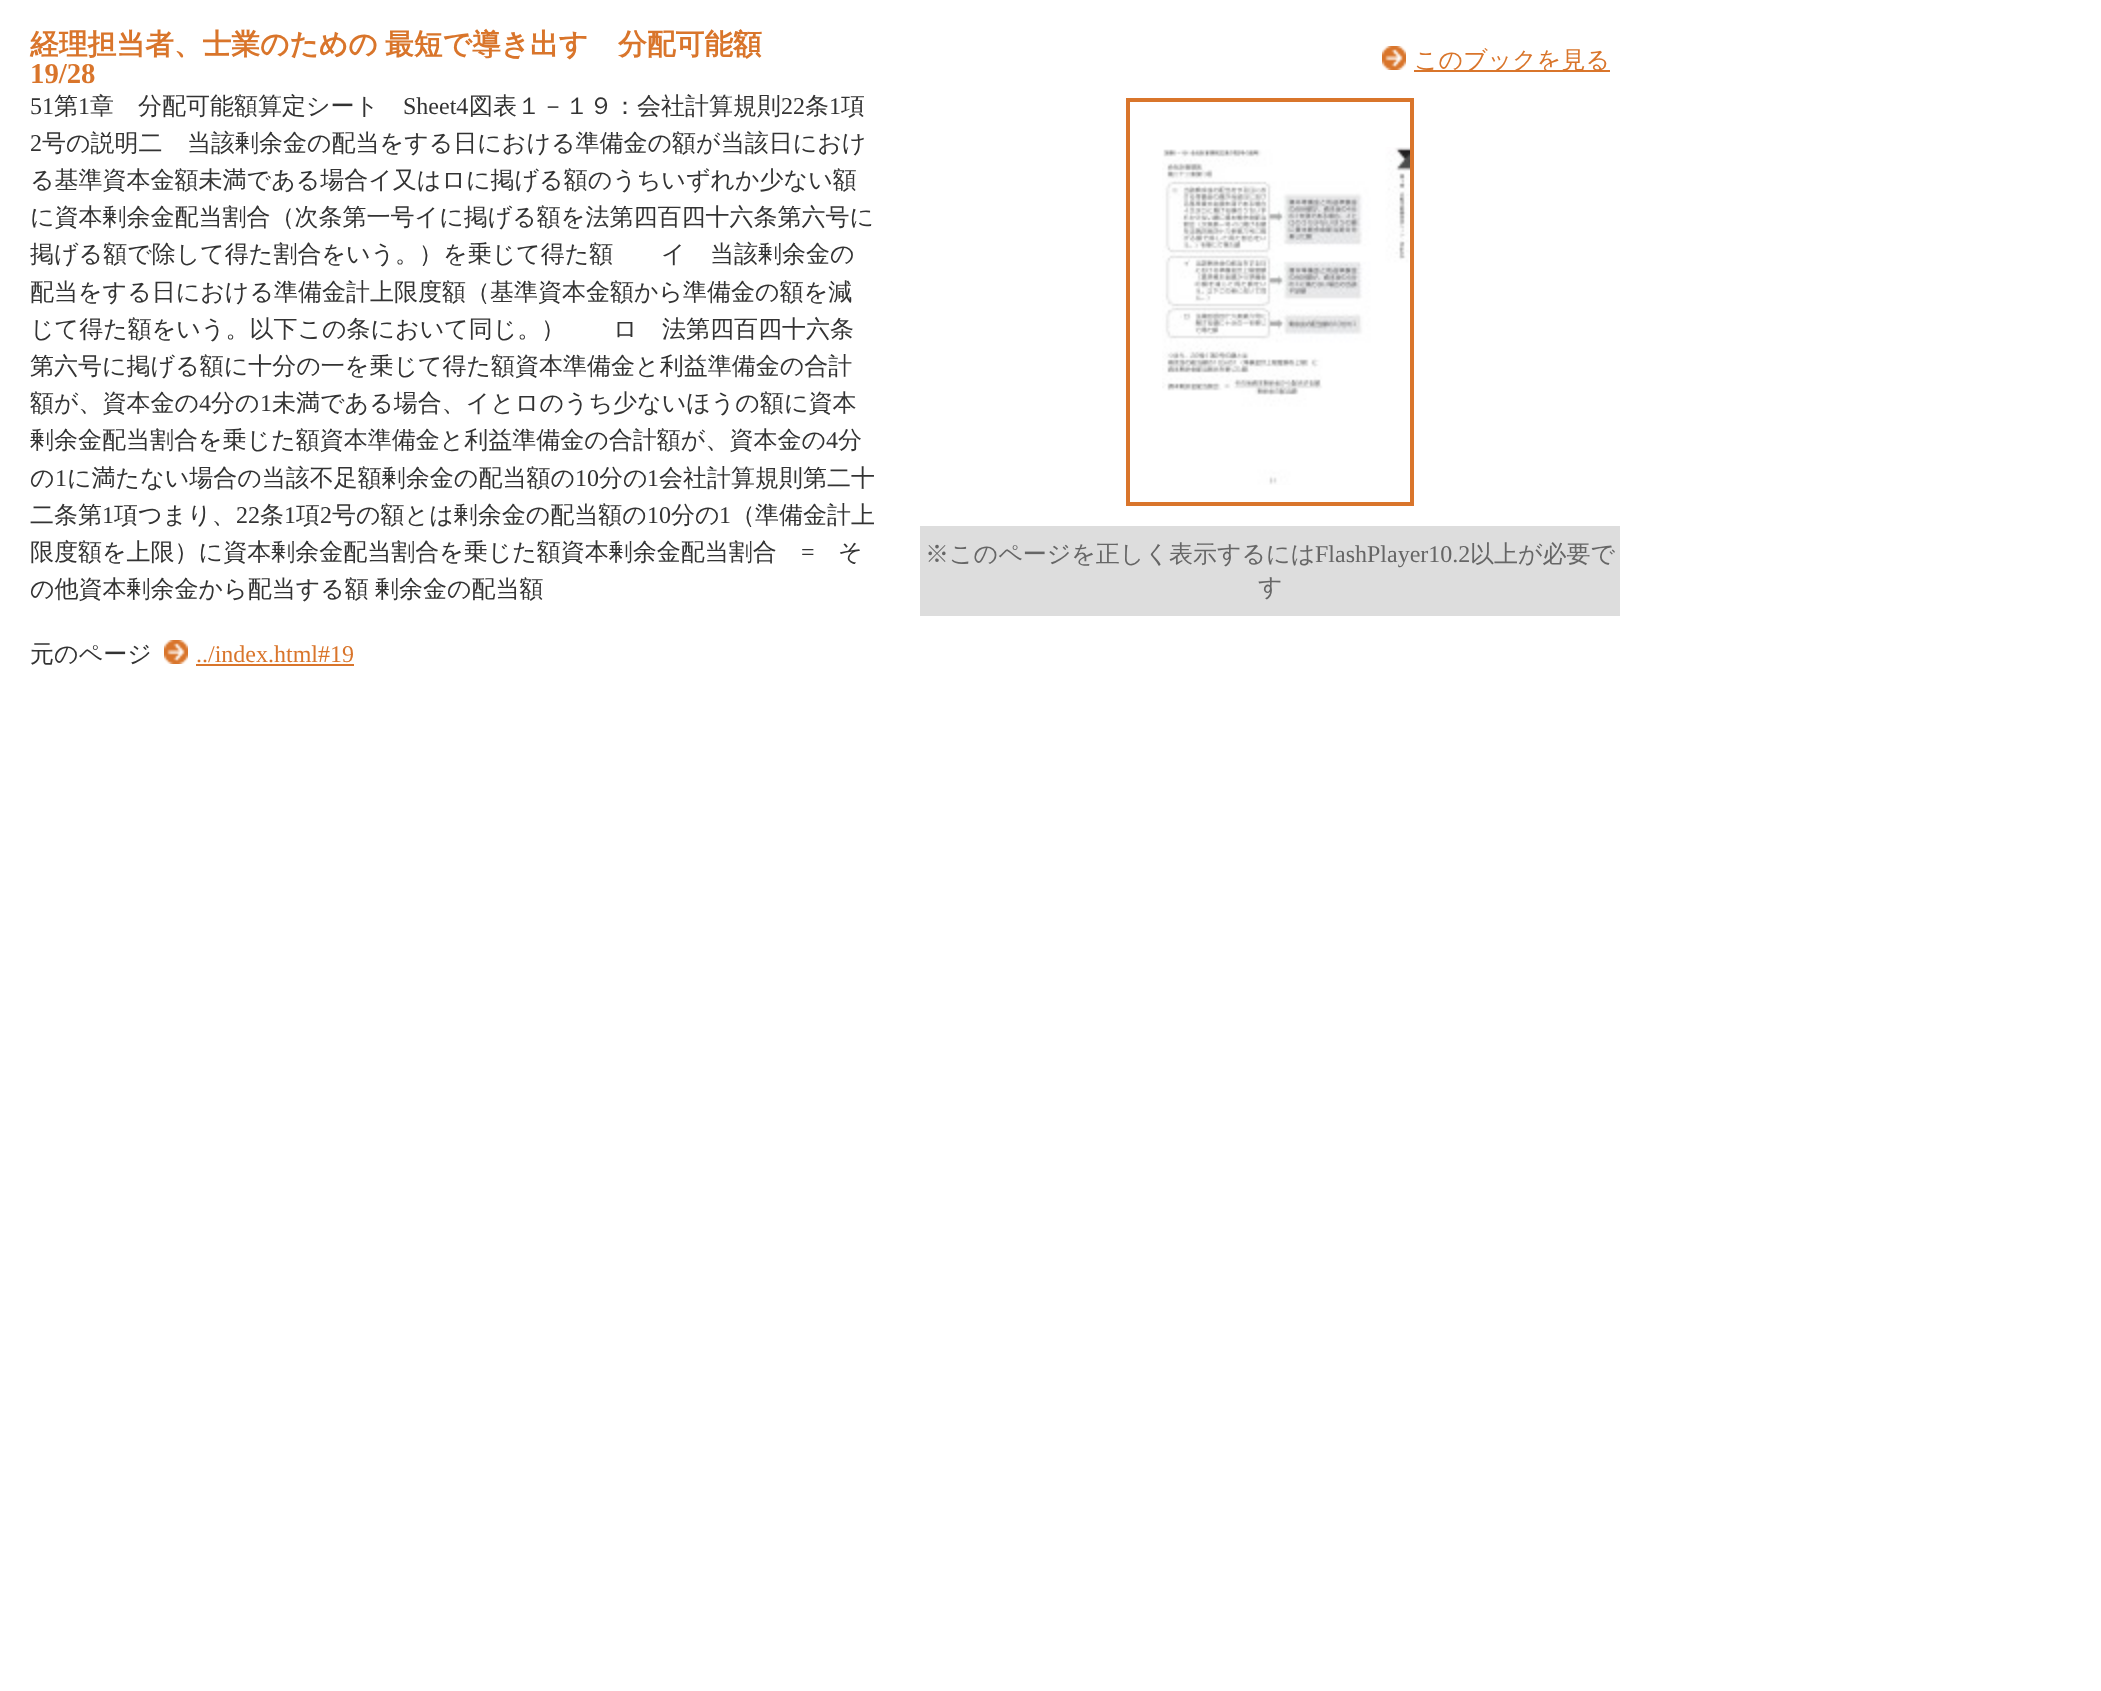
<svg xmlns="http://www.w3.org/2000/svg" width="2101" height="1691">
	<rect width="100%" height="100%" fill="#FFFFFF" />
	<g font-family="WenQuanYi Zen Hei" font-size="28.75" font-weight="700" fill="#D9752B">
		<text x="30" y="54">経理担当者、士業のための</text>
		<text x="385" y="54">最短で導き出す</text>
		<text x="618" y="54">分配可能額</text>
	</g>
	<text x="30" y="83" font-family="Liberation Serif" font-size="28.75" font-weight="700" fill="#D9752B">19/28</text>
	<text x="30" y="114" font-family="Liberation Serif" font-size="24" fill="#333333">51</text>
	<text x="54" y="114" font-family="WenQuanYi Zen Hei" font-size="24" font-weight="500" fill="#333333">第</text>
	<text x="78" y="114" font-family="Liberation Serif" font-size="24" fill="#333333">1</text>
	<g font-family="WenQuanYi Zen Hei" font-size="24" font-weight="500" fill="#333333">
		<text x="90" y="114">章</text>
		<text x="138" y="114">分配可能額算定シート</text>
	</g>
	<text x="403" y="114" font-family="Liberation Serif" font-size="24" fill="#333333">Sheet4</text>
	<text x="469" y="114" font-family="WenQuanYi Zen Hei" font-size="24" font-weight="500" fill="#333333">図表１－１９：会社計算規則</text>
	<text x="781" y="114" font-family="Liberation Serif" font-size="24" fill="#333333">22</text>
	<text x="805" y="114" font-family="WenQuanYi Zen Hei" font-size="24" font-weight="500" fill="#333333">条</text>
	<text x="829" y="114" font-family="Liberation Serif" font-size="24" fill="#333333">1</text>
	<text x="841" y="114" font-family="WenQuanYi Zen Hei" font-size="24" font-weight="500" fill="#333333">項</text>
	<text x="30" y="151" font-family="Liberation Serif" font-size="24" fill="#333333">2</text>
	<g font-family="WenQuanYi Zen Hei" font-size="24" font-weight="500" fill="#333333">
		<text x="42" y="151">号の説明二</text>
		<text x="187" y="151">当該剰余金の配当をする日における準備金の額が当該日におけ</text>
		<text x="30" y="188">る基準資本金額未満である場合イ又はロに掲げる額のうちいずれか少ない額</text>
		<text x="30" y="225">に資本剰余金配当割合（次条第一号イに掲げる額を法第四百四十六条第六号に</text>
		<text x="30" y="262">掲げる額で除して得た割合をいう。）を乗じて得た額</text>
		<text x="661" y="262">イ</text>
		<text x="710" y="262">当該剰余金の</text>
		<text x="30" y="300">配当をする日における準備金計上限度額（基準資本金額から準備金の額を減</text>
		<text x="30" y="337">じて得た額をいう。以下この条において同じ。）</text>
		<text x="613" y="337">ロ</text>
		<text x="662" y="337">法第四百四十六条</text>
		<text x="30" y="374">第六号に掲げる額に十分の一を乗じて得た額資本準備金と利益準備金の合計</text>
		<text x="30" y="411">額が、資本金の</text>
	</g>
	<text x="199" y="411" font-family="Liberation Serif" font-size="24" fill="#333333">4</text>
	<text x="211" y="411" font-family="WenQuanYi Zen Hei" font-size="24" font-weight="500" fill="#333333">分の</text>
	<text x="260" y="411" font-family="Liberation Serif" font-size="24" fill="#333333">1</text>
	<g font-family="WenQuanYi Zen Hei" font-size="24" font-weight="500" fill="#333333">
		<text x="272" y="411">未満である場合、イとロのうち少ないほうの額に資本</text>
		<text x="30" y="448">剰余金配当割合を乗じた額資本準備金と利益準備金の合計額が、資本金の</text>
	</g>
	<text x="826" y="448" font-family="Liberation Serif" font-size="24" fill="#333333">4</text>
	<g font-family="WenQuanYi Zen Hei" font-size="24" font-weight="500" fill="#333333">
		<text x="838" y="448">分</text>
		<text x="30" y="486">の</text>
	</g>
	<text x="55" y="486" font-family="Liberation Serif" font-size="24" fill="#333333">1</text>
	<text x="67" y="486" font-family="WenQuanYi Zen Hei" font-size="24" font-weight="500" fill="#333333">に満たない場合の当該不足額剰余金の配当額の</text>
	<text x="575" y="486" font-family="Liberation Serif" font-size="24" fill="#333333">10</text>
	<text x="599" y="486" font-family="WenQuanYi Zen Hei" font-size="24" font-weight="500" fill="#333333">分の</text>
	<text x="647" y="486" font-family="Liberation Serif" font-size="24" fill="#333333">1</text>
	<g font-family="WenQuanYi Zen Hei" font-size="24" font-weight="500" fill="#333333">
		<text x="659" y="486">会社計算規則第二十</text>
		<text x="30" y="523">二条第</text>
	</g>
	<text x="102" y="523" font-family="Liberation Serif" font-size="24" fill="#333333">1</text>
	<text x="114" y="523" font-family="WenQuanYi Zen Hei" font-size="24" font-weight="500" fill="#333333">項つまり、</text>
	<text x="236" y="523" font-family="Liberation Serif" font-size="24" fill="#333333">22</text>
	<text x="260" y="523" font-family="WenQuanYi Zen Hei" font-size="24" font-weight="500" fill="#333333">条</text>
	<text x="284" y="523" font-family="Liberation Serif" font-size="24" fill="#333333">1</text>
	<text x="296" y="523" font-family="WenQuanYi Zen Hei" font-size="24" font-weight="500" fill="#333333">項</text>
	<text x="320" y="523" font-family="Liberation Serif" font-size="24" fill="#333333">2</text>
	<text x="332" y="523" font-family="WenQuanYi Zen Hei" font-size="24" font-weight="500" fill="#333333">号の額とは剰余金の配当額の</text>
	<text x="647" y="523" font-family="Liberation Serif" font-size="24" fill="#333333">10</text>
	<text x="671" y="523" font-family="WenQuanYi Zen Hei" font-size="24" font-weight="500" fill="#333333">分の</text>
	<text x="719" y="523" font-family="Liberation Serif" font-size="24" fill="#333333">1</text>
	<g font-family="WenQuanYi Zen Hei" font-size="24" font-weight="500" fill="#333333">
		<text x="731" y="523">（準備金計上</text>
		<text x="30" y="560">限度額を上限）に資本剰余金配当割合を乗じた額資本剰余金配当割合</text>
	</g>
	<text x="801" y="560" font-family="Liberation Serif" font-size="24" fill="#333333">=</text>
	<g font-family="WenQuanYi Zen Hei" font-size="24" font-weight="500" fill="#333333">
		<text x="838" y="560">そ</text>
		<text x="30" y="597">の他資本剰余金から配当する額</text>
		<text x="375" y="597">剰余金の配当額</text>
		<text x="30" y="662">元のページ</text>
	</g>
	<image x="164" y="640" width="24" height="24" href="assets/img1.png" />
	<text x="196" y="662" font-family="Liberation Serif" font-size="24" fill="#D9752B">../index.html#19</text>
	<rect x="196" y="664" width="158" height="2" fill="#D9752B" />
	<image x="1382" y="46" width="24" height="24" href="assets/img1.png" />
	<rect x="1414" y="70" width="196" height="2" fill="#D9752B" />
	<text x="1414" y="68" font-family="WenQuanYi Zen Hei" font-size="24" font-weight="500" fill="#D9752B">このブックを見る</text>
	<rect x="1128" y="100" width="284" height="404" fill="none" stroke="#D9752B" stroke-width="4" />
	<image x="1162" y="147" width="248" height="338" href="assets/img2.png" />
	<rect x="920" y="526" width="700" height="90" fill="#DDDDDD" />
	<text x="925" y="562" font-family="WenQuanYi Zen Hei" font-size="24" font-weight="500" fill="#666666">※このページを正しく表示するには</text>
	<text x="1315" y="562" font-family="Liberation Serif" font-size="24" fill="#666666">FlashPlayer10.2</text>
	<g font-family="WenQuanYi Zen Hei" font-size="24" font-weight="500" fill="#666666">
		<text x="1470" y="562">以上が必要で</text>
		<text x="1258" y="595">す</text>
	</g>
</svg>
